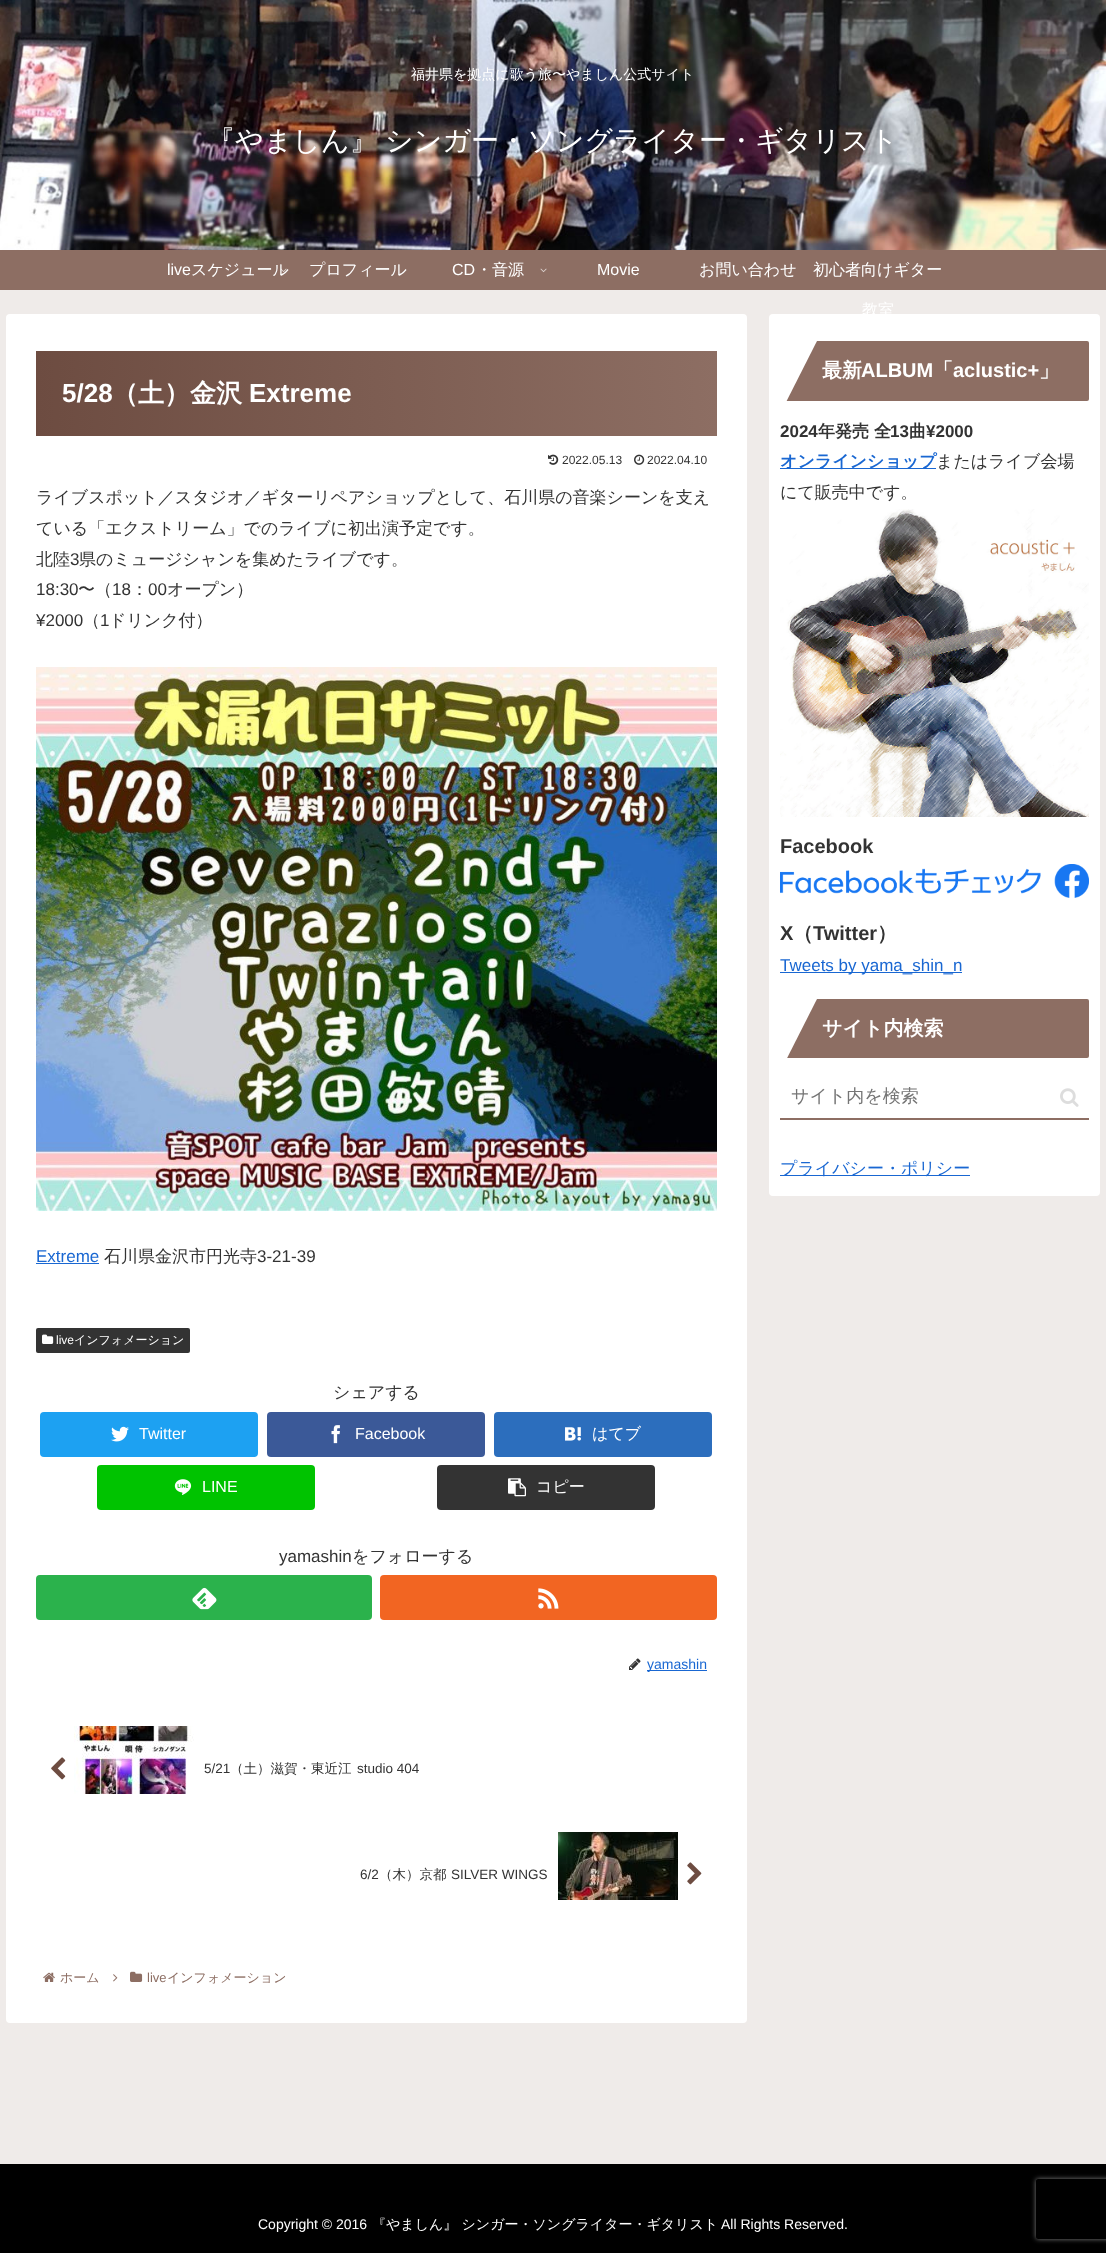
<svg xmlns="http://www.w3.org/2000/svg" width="1106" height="2253">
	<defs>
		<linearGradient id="g1" gradientUnits="userSpaceOnUse" x1="36" y1="394" x2="717" y2="394"><stop offset="0" stop-color="#6D4C41" /><stop offset="1" stop-color="#8D6E63" /></linearGradient>
		<clipPath id="clip1"><path d="M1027 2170H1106V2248H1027ZM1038 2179H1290C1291 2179 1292 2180 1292 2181V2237C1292 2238 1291 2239 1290 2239H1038C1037 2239 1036 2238 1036 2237V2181C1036 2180 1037 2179 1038 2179Z" clip-rule="evenodd" /></clipPath>
	</defs>
	<rect width="100%" height="100%" fill="#EFEBE9" />
	<rect x="0" y="250" width="1106" height="40" fill="#8D6E63" />
	<image x="0" y="0" width="1106" height="250" href="assets/img1.png" />
	<text x="411" y="79" font-family="WenQuanYi Zen Hei" font-size="14" font-weight="500" fill="#FFFFFF">福井県を拠点に歌う旅〜やましん公式サイト</text>
	<text x="207" y="150" word-spacing="-1" font-family="WenQuanYi Zen Hei" font-size="28" font-weight="500" fill="#FFFFFF">『やましん』 シンガー・ソングライター・ギタリスト</text>
	<text x="167" y="275" font-family="Liberation Sans" font-size="16" fill="#FFFFFF">live</text>
	<text x="191" y="275" font-family="WenQuanYi Zen Hei" font-size="16" font-weight="500" fill="#FFFFFF">スケジュール</text>
	<image x="280" y="268" width="7" height="5" href="assets/img2.png" />
	<text x="309" y="275" font-family="WenQuanYi Zen Hei" font-size="16" font-weight="500" fill="#FFFFFF">プロフィール</text>
	<text x="452" y="275" font-family="Liberation Sans" font-size="16" fill="#FFFFFF">CD</text>
	<text x="476" y="275" font-family="WenQuanYi Zen Hei" font-size="16" font-weight="500" fill="#FFFFFF">・音源</text>
	<image x="540" y="268" width="7" height="5" href="assets/img3.png" />
	<text x="597" y="275" font-family="Liberation Sans" font-size="16" fill="#FFFFFF">Movie</text>
	<g font-family="WenQuanYi Zen Hei" font-size="16" font-weight="500" fill="#FFFFFF">
		<text x="699" y="275">お問い合わせ</text>
		<text x="813" y="275">初心者向けギター</text>
	</g>
	<rect x="769" y="314" width="331" height="882" rx="4" fill="#FFFFFF" />
	<text x="862" y="315" font-family="WenQuanYi Zen Hei" font-size="16" font-weight="500" fill="#FFFFFF">教室</text>
	<rect x="6" y="314" width="741" height="1709" rx="4" fill="#FFFFFF" />
	<rect x="36" y="351" width="681" height="85" fill="url(#g1)" />
	<text x="62" y="402" font-family="Liberation Sans" font-size="26" font-weight="700" fill="#FFFFFF">5/28</text>
	<text x="112" y="402" font-family="WenQuanYi Zen Hei" font-size="26" font-weight="700" fill="#FFFFFF">（土）金沢</text>
	<text x="249" y="402" font-family="Liberation Sans" font-size="26" font-weight="700" fill="#FFFFFF">Extreme</text>
	<image x="548" y="454" width="11" height="11" href="assets/img4.png" />
	<text x="562" y="464" font-family="Liberation Sans" font-size="12" fill="#333333">2022.05.13</text>
	<image x="634" y="454" width="11" height="11" href="assets/img5.png" />
	<text x="647" y="464" font-family="Liberation Sans" font-size="12" fill="#333333">2022.04.10</text>
	<g font-family="WenQuanYi Zen Hei" font-size="17" font-weight="500" fill="#333333">
		<text x="36" y="503">ライブスポット／スタジオ／ギターリペアショップとして、石川県の音楽シーンを支え</text>
		<text x="36" y="534">ている「エクストリーム」でのライブに初出演予定です。</text>
		<text x="36" y="565">北陸</text>
	</g>
	<text x="70" y="565" font-family="Liberation Sans" font-size="17" fill="#333333">3</text>
	<text x="79" y="565" font-family="WenQuanYi Zen Hei" font-size="17" font-weight="500" fill="#333333">県のミュージシャンを集めたライブです。</text>
	<text x="36" y="595" font-family="Liberation Sans" font-size="17" fill="#333333">18:30</text>
	<text x="78" y="595" font-family="WenQuanYi Zen Hei" font-size="17" font-weight="500" fill="#333333">〜（</text>
	<text x="112" y="595" font-family="Liberation Sans" font-size="17" fill="#333333">18</text>
	<text x="131" y="595" font-family="WenQuanYi Zen Hei" font-size="17" font-weight="500" fill="#333333">：</text>
	<text x="148" y="595" font-family="Liberation Sans" font-size="17" fill="#333333">00</text>
	<text x="167" y="595" font-family="WenQuanYi Zen Hei" font-size="17" font-weight="500" fill="#333333">オープン）</text>
	<text x="36" y="626" font-family="Liberation Sans" font-size="17" fill="#333333">¥2000</text>
	<text x="83" y="626" font-family="WenQuanYi Zen Hei" font-size="17" font-weight="500" fill="#333333">（</text>
	<text x="100" y="626" font-family="Liberation Sans" font-size="17" fill="#333333">1</text>
	<text x="109" y="626" font-family="WenQuanYi Zen Hei" font-size="17" font-weight="500" fill="#333333">ドリンク付）</text>
	<image x="36" y="667" width="681" height="544" href="assets/img6.png" />
	<text x="36" y="1262" font-family="Liberation Sans" font-size="17" fill="#1967D2">Extreme</text>
	<rect x="36" y="1263" width="63" height="1" fill="#1967D2" />
	<text x="104" y="1262" font-family="WenQuanYi Zen Hei" font-size="17" font-weight="500" fill="#333333">石川県金沢市円光寺</text>
	<text x="257" y="1262" font-family="Liberation Sans" font-size="17" fill="#333333">3-21-39</text>
	<rect x="36" y="1328" width="154" height="25" rx="2" fill="#333333" />
	<image x="42" y="1334" width="12" height="10" href="assets/img7.png" />
	<text x="56" y="1344" font-family="Liberation Sans" font-size="12" fill="#FFFFFF">live</text>
	<text x="74" y="1344" font-family="WenQuanYi Zen Hei" font-size="12" font-weight="500" fill="#FFFFFF">インフォメーション</text>
	<text x="333" y="1398" font-family="WenQuanYi Zen Hei" font-size="17" font-weight="500" fill="#333333">シェアする</text>
	<rect x="40" y="1412" width="218" height="45" rx="4" fill="#1DA1F2" />
	<image x="111" y="1426" width="18" height="16" href="assets/img8.png" />
	<text x="139" y="1439" font-family="Liberation Sans" font-size="16" fill="#FFFFFF">Twitter</text>
	<rect x="267" y="1412" width="218" height="45" rx="4" fill="#3B5998" />
	<image x="331" y="1425" width="9" height="19" href="assets/img9.png" />
	<text x="355" y="1439" font-family="Liberation Sans" font-size="16" fill="#FFFFFF">Facebook</text>
	<rect x="494" y="1412" width="218" height="45" rx="4" fill="#2C6EBD" />
	<image x="565" y="1427" width="16" height="14" href="assets/img10.png" />
	<text x="592" y="1439" font-family="WenQuanYi Zen Hei" font-size="16" font-weight="500" fill="#FFFFFF">はてブ</text>
	<rect x="97" y="1465" width="218" height="45" rx="4" fill="#00C300" />
	<image x="174" y="1479" width="18" height="16" href="assets/img11.png" />
	<text x="202" y="1492" font-family="Liberation Sans" font-size="16" fill="#FFFFFF">LINE</text>
	<rect x="437" y="1465" width="218" height="45" rx="4" fill="#333333" />
	<image x="508" y="1478" width="18" height="19" href="assets/img12.png" />
	<text x="536" y="1492" font-family="WenQuanYi Zen Hei" font-size="16" font-weight="500" fill="#FFFFFF">コピー</text>
	<text x="279" y="1562" font-family="Liberation Sans" font-size="17" fill="#333333">yamashin</text>
	<text x="352" y="1562" font-family="WenQuanYi Zen Hei" font-size="17" font-weight="500" fill="#333333">をフォローする</text>
	<rect x="36" y="1575" width="336" height="45" rx="4" fill="#2BB24C" />
	<image x="192" y="1587" width="25" height="23" href="assets/img13.png" />
	<rect x="380" y="1575" width="337" height="45" rx="4" fill="#F26522" />
	<image x="538" y="1588" width="21" height="21" href="assets/img14.png" />
	<image x="629" y="1658" width="12" height="12" href="assets/img15.png" />
	<rect x="647" y="1670" width="60" height="1" fill="#1967D2" />
	<text x="647" y="1669" font-family="Liberation Sans" font-size="14" fill="#1967D2">yamashin</text>
	<image x="51" y="1757" width="15" height="23" href="assets/img16.png" />
	<image x="74" y="1726" width="120" height="68" href="assets/img17.png" />
	<text x="204" y="1773" font-family="Liberation Sans" font-size="13.5" fill="#333333">5/21</text>
	<text x="230" y="1773" font-family="WenQuanYi Zen Hei" font-size="13.5" font-weight="500" fill="#333333">（土）滋賀・東近江</text>
	<g font-family="Liberation Sans" font-size="13.5" fill="#333333">
		<text x="357" y="1773">studio 404</text>
		<text x="360" y="1879">6/2</text>
	</g>
	<text x="379" y="1879" font-family="WenQuanYi Zen Hei" font-size="13.5" font-weight="500" fill="#333333">（木）京都</text>
	<text x="451" y="1879" font-family="Liberation Sans" font-size="13.5" fill="#333333">SILVER WINGS</text>
	<image x="558" y="1832" width="120" height="68" href="assets/img18.png" />
	<image x="687" y="1862" width="15" height="23" href="assets/img19.png" />
	<image x="43" y="1972" width="12" height="10" href="assets/img20.png" />
	<text x="60" y="1982" font-family="WenQuanYi Zen Hei" font-size="13" font-weight="500" fill="#8D6E63">ホーム</text>
	<image x="113" y="1974" width="5" height="8" href="assets/img21.png" />
	<image x="130" y="1971" width="13" height="11" href="assets/img22.png" />
	<text x="147" y="1982" font-family="Liberation Sans" font-size="13" fill="#8D6E63">live</text>
	<text x="167" y="1982" font-family="WenQuanYi Zen Hei" font-size="13" font-weight="500" fill="#8D6E63">インフォメーション</text>
	<rect x="780" y="341" width="309" height="60" rx="2" fill="#8D6E63" />
	<path d="M778 418V339H818Z" fill="#FFFFFF" />
	<text x="822" y="377" font-family="WenQuanYi Zen Hei" font-size="20" font-weight="700" fill="#FFFFFF">最新</text>
	<text x="861" y="377" font-family="Liberation Sans" font-size="20" font-weight="700" fill="#FFFFFF">ALBUM</text>
	<text x="933" y="377" font-family="WenQuanYi Zen Hei" font-size="20" font-weight="700" fill="#FFFFFF">「</text>
	<text x="953" y="377" font-family="Liberation Sans" font-size="20" font-weight="700" fill="#FFFFFF">aclustic+</text>
	<text x="1039" y="377" font-family="WenQuanYi Zen Hei" font-size="20" font-weight="700" fill="#FFFFFF">」</text>
	<text x="780" y="437" font-family="Liberation Sans" font-size="17" font-weight="700" fill="#333333">2024</text>
	<text x="818" y="437" font-family="WenQuanYi Zen Hei" font-size="17" font-weight="700" fill="#333333">年発売 全</text>
	<text x="890" y="437" font-family="Liberation Sans" font-size="17" font-weight="700" fill="#333333">13</text>
	<text x="909" y="437" font-family="WenQuanYi Zen Hei" font-size="17" font-weight="700" fill="#333333">曲</text>
	<text x="926" y="437" font-family="Liberation Sans" font-size="17" font-weight="700" fill="#333333">¥2000</text>
	<rect x="780" y="468" width="156" height="1" fill="#1967D2" />
	<text x="780" y="467" font-family="WenQuanYi Zen Hei" font-size="17" font-weight="700" fill="#1967D2">オンラインショップ</text>
	<g font-family="WenQuanYi Zen Hei" font-size="17" font-weight="500" fill="#333333">
		<text x="936" y="467">またはライブ会場</text>
		<text x="780" y="498">にて販売中です。</text>
	</g>
	<image x="780" y="509" width="309" height="308" href="assets/img23.png" />
	<text x="780" y="853" font-family="Liberation Sans" font-size="20" font-weight="700" fill="#333333">Facebook</text>
	<image x="780" y="864" width="309" height="34" href="assets/img24.png" />
	<text x="780" y="940" font-family="Liberation Sans" font-size="20" font-weight="700" fill="#333333">X</text>
	<text x="793" y="940" font-family="WenQuanYi Zen Hei" font-size="20" font-weight="700" fill="#333333">（</text>
	<text x="813" y="940" font-family="Liberation Sans" font-size="20" font-weight="700" fill="#333333">Twitter</text>
	<text x="877" y="940" font-family="WenQuanYi Zen Hei" font-size="20" font-weight="700" fill="#333333">）</text>
	<rect x="780" y="972" width="182" height="1" fill="#1967D2" />
	<text x="780" y="971" font-family="Liberation Sans" font-size="17" fill="#1967D2">Tweets by yama_shin_n</text>
	<rect x="780" y="999" width="309" height="59" rx="2" fill="#8D6E63" />
	<path d="M778 1076V997H818Z" fill="#FFFFFF" />
	<text x="822" y="1035" font-family="WenQuanYi Zen Hei" font-size="20" font-weight="700" fill="#FFFFFF">サイト内検索</text>
	<rect x="780" y="1118" width="309" height="2" fill="#8D6E63" />
	<text x="791" y="1102" font-family="WenQuanYi Zen Hei" font-size="18" font-weight="500" fill="#757575">サイト内を検索</text>
	<image x="1060" y="1088" width="19" height="19" href="assets/img25.png" />
	<rect x="780" y="1175" width="190" height="1" fill="#1967D2" />
	<text x="780" y="1174" font-family="WenQuanYi Zen Hei" font-size="17" font-weight="500" fill="#1967D2">プライバシー・ポリシー</text>
	<rect x="0" y="2164" width="1106" height="89" fill="#000000" />
	<text x="258" y="2229" font-family="Liberation Sans" font-size="14" fill="#FFFFFF">Copyright © 2016</text>
	<text x="372" y="2229" font-family="WenQuanYi Zen Hei" font-size="14" font-weight="500" fill="#FFFFFF">『やましん』 シンガー・ソングライター・ギタリスト</text>
	<text x="721" y="2229" font-family="Liberation Sans" font-size="14" fill="#FFFFFF">All Rights Reserved.</text>
	<g clip-path="url(#clip1)">
		<rect x="1036" y="2179" width="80" height="60" rx="2" fill="#808080" filter="blur(2.5px)" />
	</g>
</svg>
